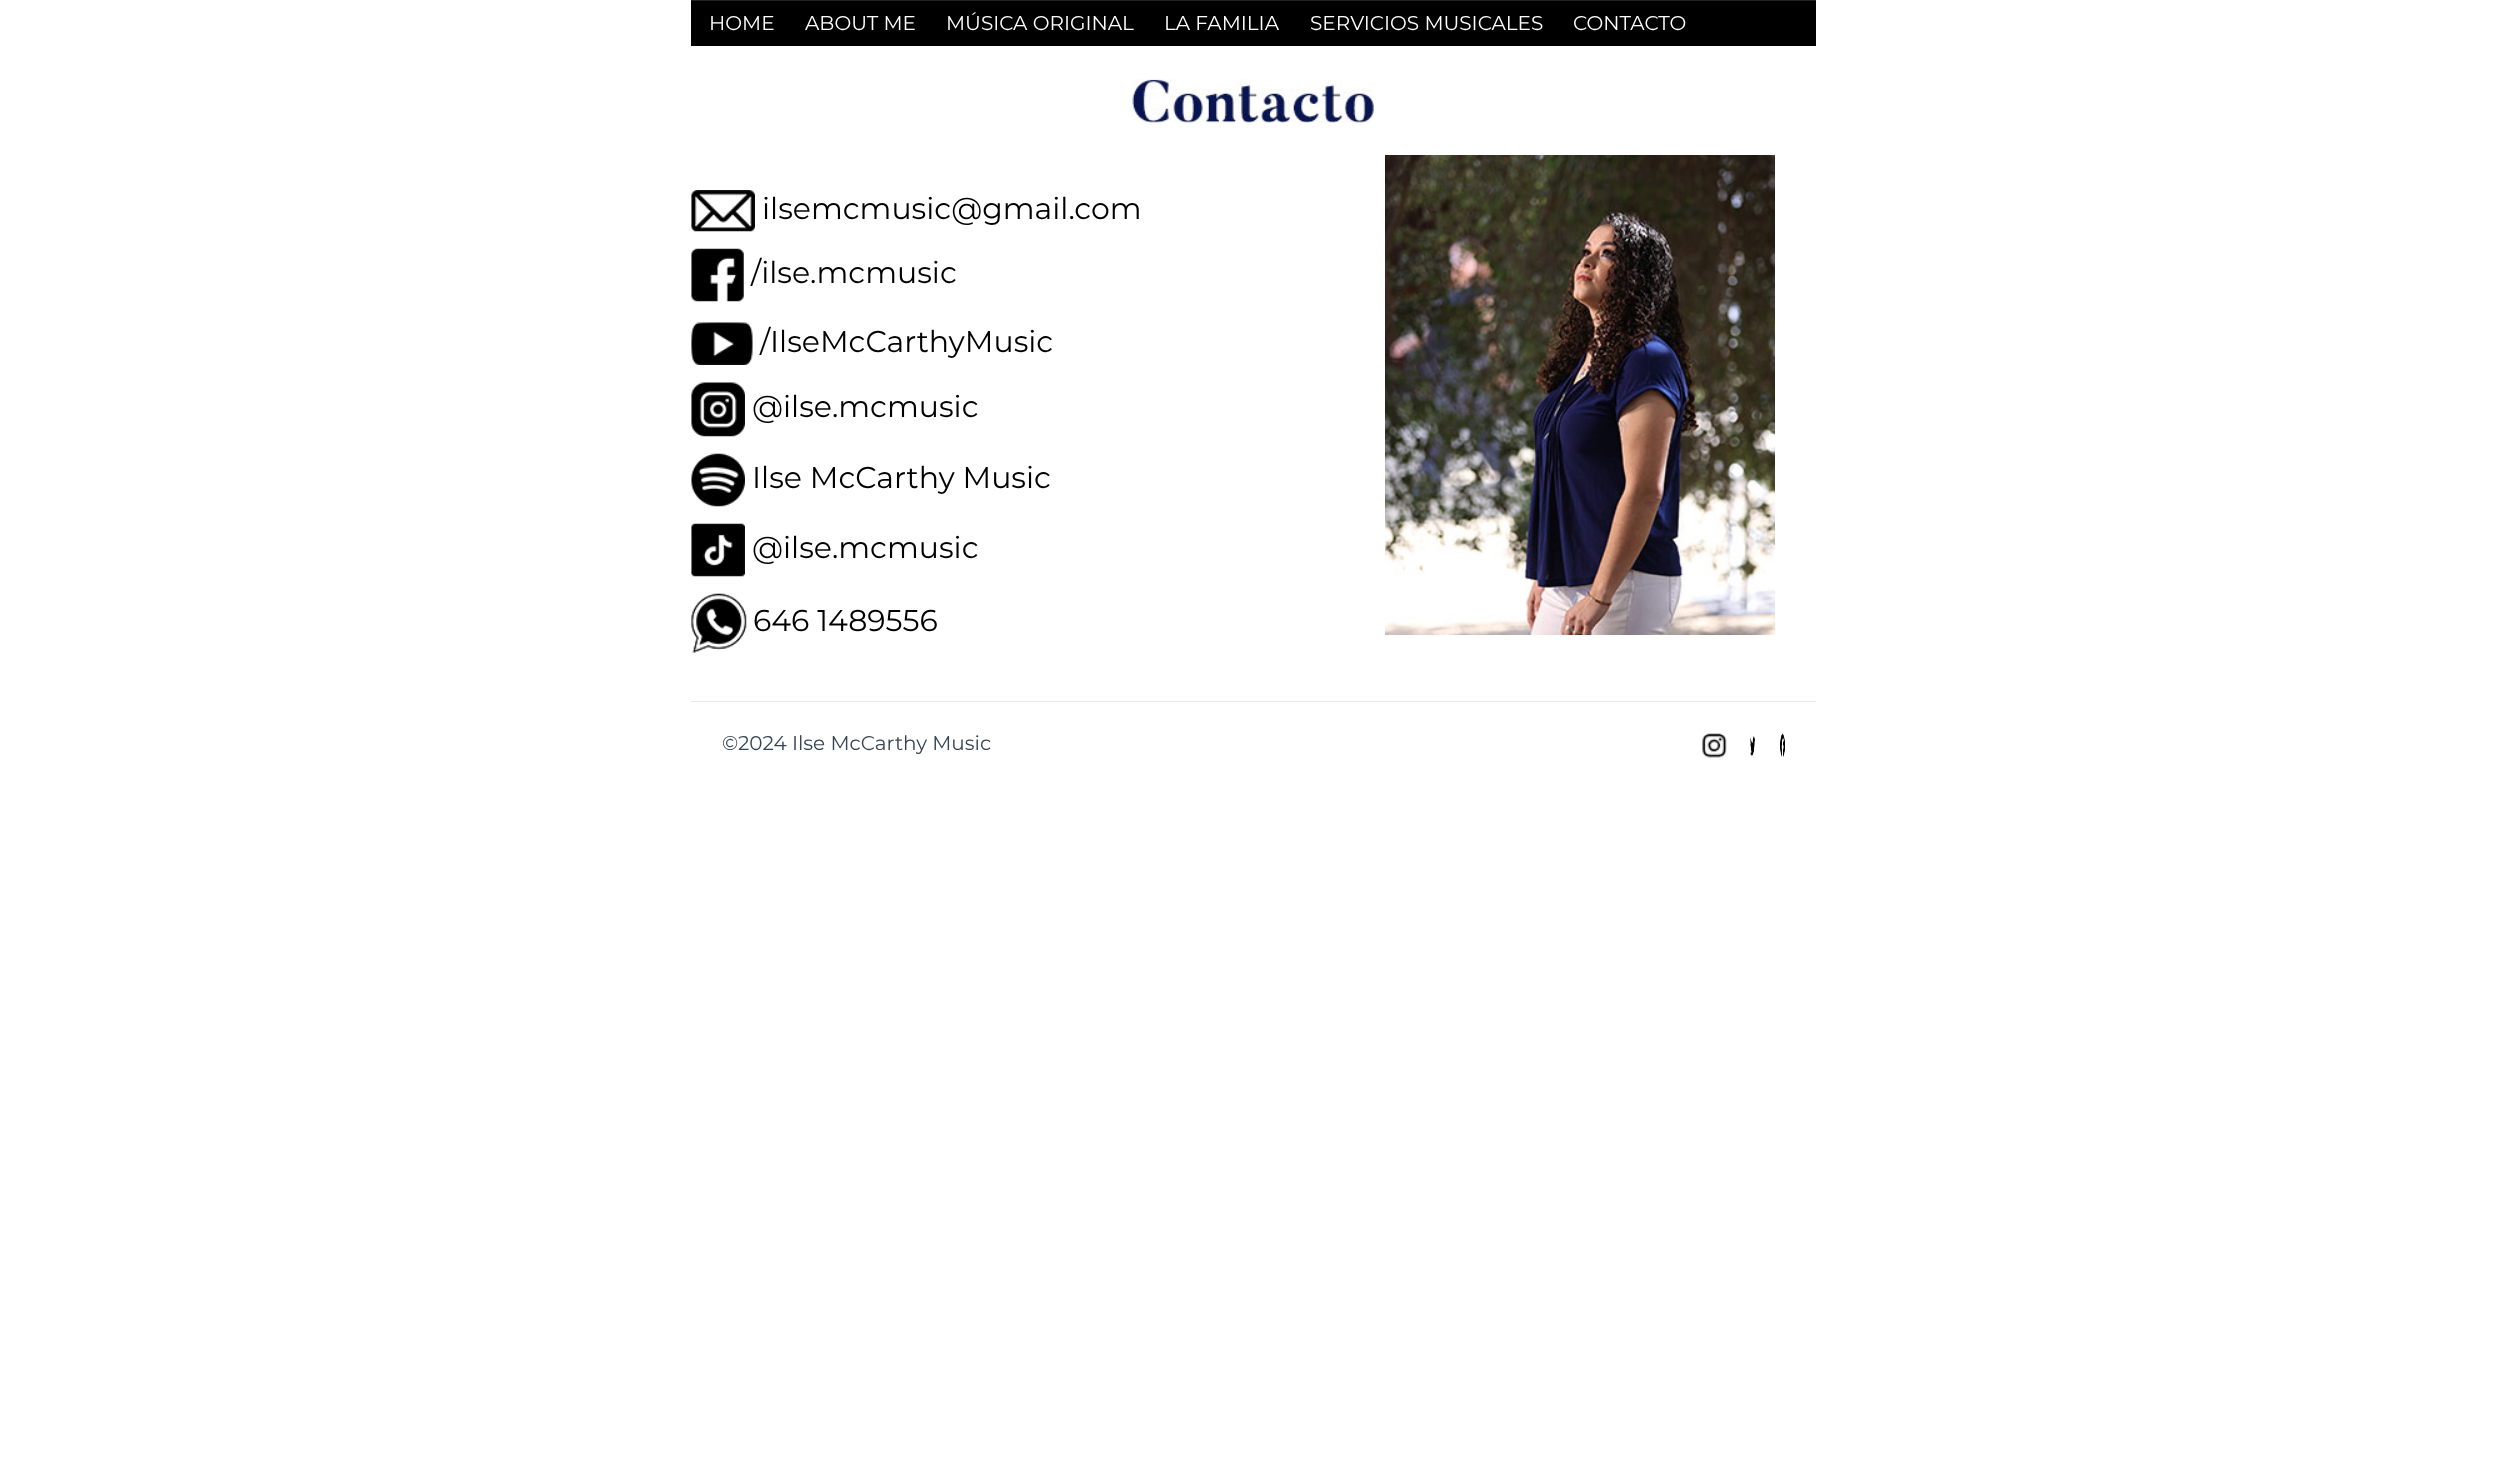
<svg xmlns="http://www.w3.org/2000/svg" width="2506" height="1484">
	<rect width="100%" height="100%" fill="#FFFFFF" />
	<rect x="691" y="1" width="1125" height="45" fill="#000000" />
	<rect x="691" y="0" width="1125" height="1" fill="#222222" />
	<g font-family="Montserrat" font-size="20" fill="#FFFFFF">
		<text x="709" y="30">HOME</text>
		<text x="805" y="30">ABOUT ME</text>
		<text x="946" y="30">MÚSICA ORIGINAL</text>
		<text x="1164" y="30">LA FAMILIA</text>
		<text x="1310" y="30">SERVICIOS MUSICALES</text>
		<text x="1573" y="30">CONTACTO</text>
	</g>
	<image x="1132" y="79" width="243" height="44" href="assets/img1.png" />
	<image x="691" y="190" width="64" height="42" href="assets/img2.png" />
	<text x="762" y="219" font-family="Montserrat" font-size="30" fill="#000000">ilsemcmusic@gmail.com</text>
	<image x="691" y="248" width="53" height="54" href="assets/img3.png" />
	<text x="751" y="283" font-family="Montserrat" font-size="30" fill="#000000">/ilse.mcmusic</text>
	<image x="691" y="322" width="62" height="43" href="assets/img4.png" />
	<text x="760" y="352" font-family="Montserrat" font-size="30" fill="#000000">/IlseMcCarthyMusic</text>
	<image x="691" y="382" width="54" height="55" href="assets/img5.png" />
	<text x="752" y="417" font-family="Montserrat" font-size="30" fill="#000000">@ilse.mcmusic</text>
	<image x="691" y="453" width="54" height="54" href="assets/img6.png" />
	<text x="752" y="488" font-family="Montserrat" font-size="30" fill="#000000">Ilse McCarthy Music</text>
	<image x="691" y="523" width="54" height="54" href="assets/img7.png" />
	<text x="752" y="558" font-family="Montserrat" font-size="30" fill="#000000">@ilse.mcmusic</text>
	<image x="691" y="593" width="56" height="60" href="assets/img8.png" />
	<text x="753" y="631" font-family="Montserrat" font-size="30" fill="#000000">646 1489556</text>
	<image x="1385" y="155" width="390" height="480" href="assets/img9.png" />
	<rect x="691" y="701" width="1125" height="1" fill="#E7EAED" />
	<text x="722" y="750" font-family="Montserrat" font-size="20" fill="#354554">©2024 Ilse McCarthy Music</text>
	<image x="1702" y="733" width="25" height="25" href="assets/img10.png" />
	<image x="1750" y="734" width="5" height="23" href="assets/img11.png" />
	<image x="1780" y="733" width="5" height="25" href="assets/img12.png" />
</svg>
